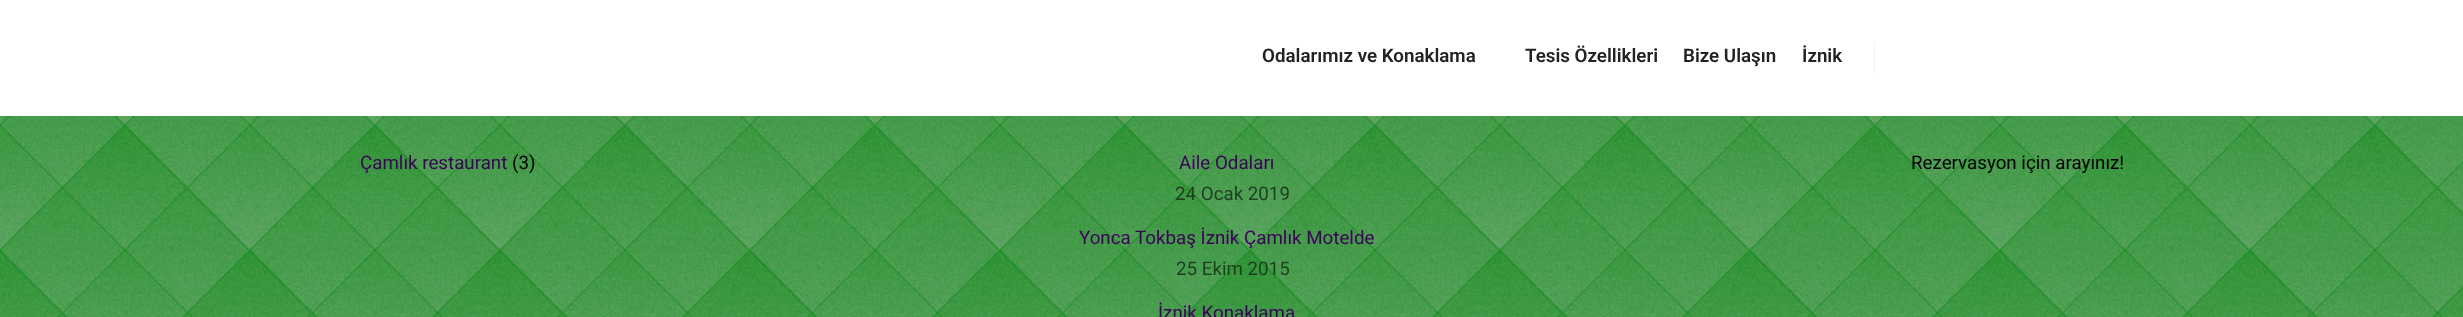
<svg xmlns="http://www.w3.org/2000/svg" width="2463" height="317">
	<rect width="100%" height="100%" fill="#008509" />
	<rect x="0" y="0" width="2463" height="116" fill="#FFFFFF" />
	<g font-family="Roboto" font-size="18.75" font-weight="600" fill="#222222">
		<text x="1262" y="62">Odalarımız ve Konaklama</text>
		<text x="1525" y="62">Tesis Özellikleri</text>
		<text x="1683" y="62">Bize Ulaşın</text>
		<text x="1802" y="62">İznik</text>
	</g>
	<rect x="1874" y="43" width="1" height="31" fill="#F3F3F3" />
	<image x="0" y="116" width="2463" height="201" href="assets/img1.png" />
	<text x="360" y="169" font-family="Roboto" font-size="18.75" fill="#3E005B">Çamlık restaurant</text>
	<text x="512" y="169" font-family="Roboto" font-size="18.75" fill="#000000">(3)</text>
	<text x="1179" y="169" font-family="Roboto" font-size="18.75" fill="#3E005B">Aile Odaları</text>
	<text x="1175" y="200" font-family="Roboto" font-size="18.75" fill="#1D3F1F">24 Ocak 2019</text>
	<text x="1079" y="244" font-family="Roboto" font-size="18.75" fill="#3E005B">Yonca Tokbaş İznik Çamlık Motelde</text>
	<text x="1176" y="275" font-family="Roboto" font-size="18.75" fill="#1D3F1F">25 Ekim 2015</text>
	<text x="1158" y="319" font-family="Roboto" font-size="18.75" fill="#3E005B">İznik Konaklama</text>
	<text x="1911" y="169" font-family="Roboto" font-size="18.75" fill="#000000">Rezervasyon için arayınız!</text>
</svg>
